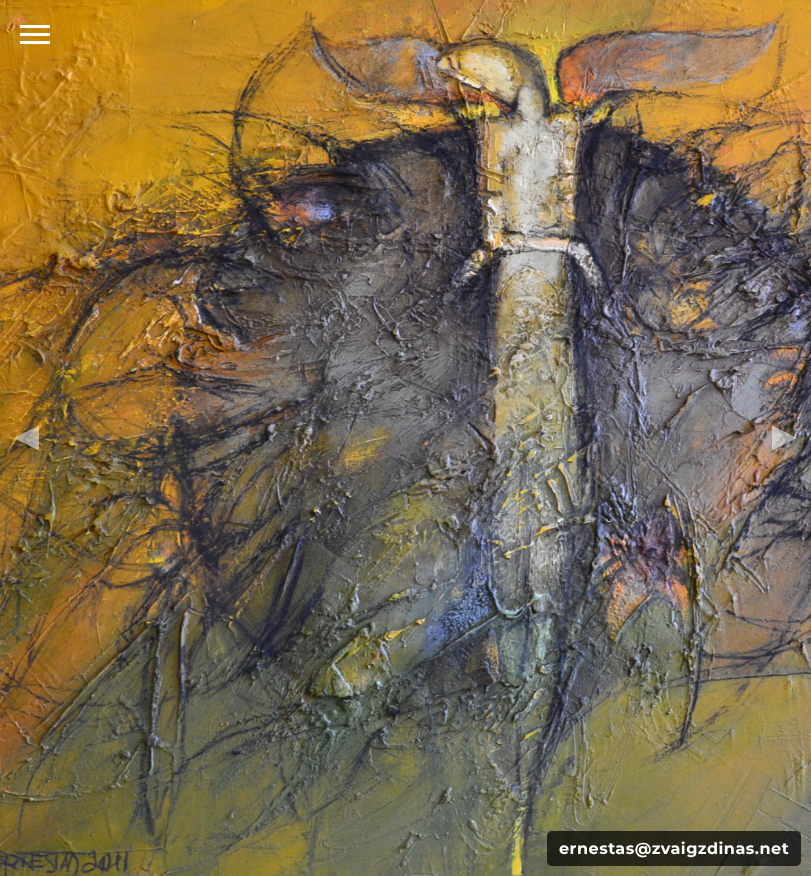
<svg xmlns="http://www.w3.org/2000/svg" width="811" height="876">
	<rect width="100%" height="100%" fill="#FFFFFF" />
	<image x="0" y="0" width="811" height="876" href="assets/img1.png" />
	<rect x="20" y="25" width="30" height="3" fill="#FFFFFF" />
	<rect x="20" y="33" width="30" height="3" fill="#FFFFFF" />
	<rect x="20" y="41" width="30" height="3" fill="#FFFFFF" />
	<text x="20" y="444" font-family="DejaVu Sans" font-size="16" fill="#2E2514">❮</text>
	<path d="M14 438L38 426H39V450.5Z" fill="#FFFFFF" fill-opacity="0.5" />
	<text x="778" y="444" font-family="DejaVu Sans" font-size="16" fill="#3F3A37">❯</text>
	<path d="M772 426H773L797 438L772 450.5Z" fill="#FFFFFF" fill-opacity="0.5" />
	<rect x="547" y="831" width="254" height="35" rx="5" fill="#000000" fill-opacity="0.7" />
	<text x="559" y="854" font-family="Montserrat" font-size="16" font-weight="700" letter-spacing="0.5" fill="#FFFFFF">ernestas@zvaigzdinas.net</text>
</svg>
